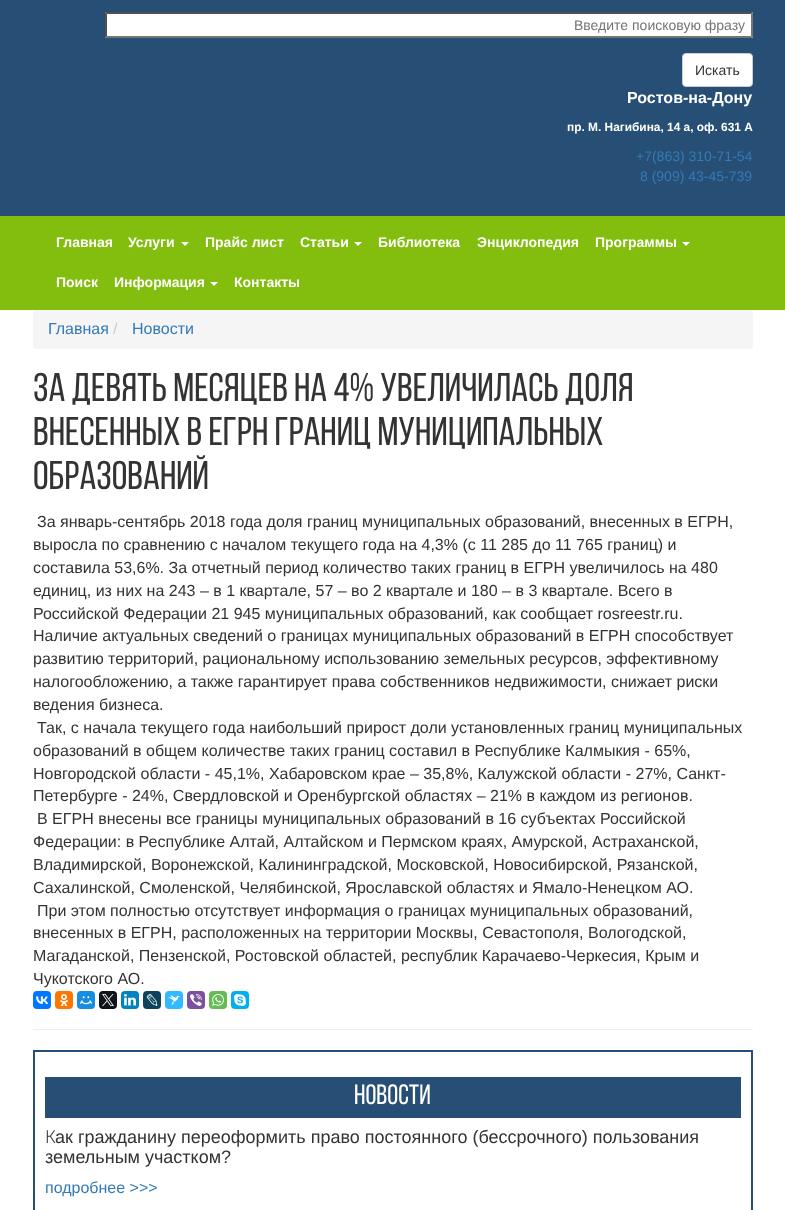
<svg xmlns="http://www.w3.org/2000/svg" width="785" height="1210">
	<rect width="100%" height="100%" fill="#FFFFFF" />
	<rect x="0" y="0" width="785" height="216" fill="#274F75" />
	<rect x="105" y="12" width="648" height="26" fill="#FFFFFF" />
	<path d="M105 12H753L751 14H107Z" fill="#4F4F4F" />
	<path d="M753 12V38L751 36V14Z" fill="#767676" />
	<path d="M753 38H105L107 36H751Z" fill="#767676" />
	<path d="M105 38V12L107 14V36Z" fill="#4F4F4F" />
	<text x="574" y="30" font-family="Liberation Sans" font-size="14" fill="#757575">Введите поисковую фразу</text>
	<rect x="682.5" y="53.5" width="70" height="33" rx="3.5" fill="#FFFFFF" stroke="#CCCCCC" />
	<text x="695" y="75" font-family="Liberation Sans" font-size="14" fill="#333333">Искать</text>
	<text x="627" y="103" font-family="Liberation Sans" font-size="16" font-weight="700" fill="#FFFFFF">Ростов-на-Дону</text>
	<text x="567" y="131" font-family="Liberation Sans" font-size="11.9" font-weight="700" fill="#FFFFFF">пр. М. Нагибина, 14 а, оф. 631 А</text>
	<g font-family="Liberation Sans" font-size="14" fill="#337AB7">
		<text x="636" y="161">+7(863) 310-71-54</text>
		<text x="640" y="181">8 (909) 43-45-739</text>
	</g>
	<rect x="0" y="216" width="785" height="94" fill="#83BD0E" />
	<g font-family="Liberation Sans" font-size="14" font-weight="700" fill="#FFFFFF">
		<text x="56" y="247">Главная</text>
		<text x="128" y="247">Услуги</text>
	</g>
	<path d="M181 242H189L185 246Z" fill="#FFFFFF" />
	<g font-family="Liberation Sans" font-size="14" font-weight="700" fill="#FFFFFF">
		<text x="205" y="247">Прайс лист</text>
		<text x="300" y="247">Статьи</text>
	</g>
	<path d="M354 242H362L358 246Z" fill="#FFFFFF" />
	<g font-family="Liberation Sans" font-size="14" font-weight="700" fill="#FFFFFF">
		<text x="378" y="247">Библиотека</text>
		<text x="477" y="247">Энциклопедия</text>
		<text x="595" y="247">Программы</text>
	</g>
	<path d="M682 242H690L686 246Z" fill="#FFFFFF" />
	<g font-family="Liberation Sans" font-size="14" font-weight="700" fill="#FFFFFF">
		<text x="56" y="287">Поиск</text>
		<text x="114" y="287">Информация</text>
	</g>
	<path d="M210 282H218L214 286Z" fill="#FFFFFF" />
	<text x="234" y="287" font-family="Liberation Sans" font-size="14" font-weight="700" fill="#FFFFFF">Контакты</text>
	<rect x="33" y="310" width="720" height="39" rx="4" fill="#F5F5F5" />
	<text x="48" y="334" font-family="Liberation Sans" font-size="16" fill="#337AB7">Главная</text>
	<text x="113" y="334" font-family="Liberation Sans" font-size="16" fill="#CCCCCC">/</text>
	<text x="132" y="334" font-family="Liberation Sans" font-size="16" fill="#337AB7">Новости</text>
	<g font-family="Bebas Neue" font-size="40" fill="#333333">
		<text x="33" y="401">ЗА ДЕВЯТЬ МЕСЯЦЕВ НА 4% УВЕЛИЧИЛАСЬ ДОЛЯ</text>
		<text x="33" y="445">ВНЕСЕННЫХ В ЕГРН ГРАНИЦ МУНИЦИПАЛЬНЫХ</text>
		<text x="33" y="489">ОБРАЗОВАНИЙ</text>
	</g>
	<g font-family="Liberation Sans" font-size="16" fill="#333333">
		<text x="37" y="527">За январь-сентябрь 2018 года доля границ муниципальных образований, внесенных в ЕГРН,</text>
		<text x="33" y="550">выросла по сравнению с началом текущего года на 4,3% (с 11 285 до 11 765 границ) и</text>
		<text x="33" y="573">составила 53,6%. За отчетный период количество таких границ в ЕГРН увеличилось на 480</text>
		<text x="33" y="596">единиц, из них на 243 – в 1 квартале, 57 – во 2 квартале и 180 – в 3 квартале. Всего в</text>
		<text x="33" y="619">Российской Федерации 21 945 муниципальных образований, как сообщает rosreestr.ru.</text>
		<text x="33" y="641">Наличие актуальных сведений о границах муниципальных образований в ЕГРН способствует</text>
		<text x="33" y="664">развитию территорий, рациональному использованию земельных ресурсов, эффективному</text>
		<text x="33" y="687">налогообложению, а также гарантирует права собственников недвижимости, снижает риски</text>
		<text x="33" y="710">ведения бизнеса.</text>
		<text x="37" y="733">Так, с начала текущего года наибольший прирост доли установленных границ муниципальных</text>
		<text x="33" y="756">образований в общем количестве таких границ составил в Республике Калмыкия - 65%,</text>
		<text x="33" y="779">Новгородской области - 45,1%, Хабаровском крае – 35,8%, Калужской области - 27%, Санкт-</text>
		<text x="33" y="801">Петербурге - 24%, Свердловской и Оренбургской областях – 21% в каждом из регионов.</text>
		<text x="37" y="824">В ЕГРН внесены все границы муниципальных образований в 16 субъектах Российской</text>
		<text x="33" y="847">Федерации: в Республике Алтай, Алтайском и Пермском краях, Амурской, Астраханской,</text>
		<text x="33" y="870">Владимирской, Воронежской, Калининградской, Московской, Новосибирской, Рязанской,</text>
		<text x="33" y="893">Сахалинской, Смоленской, Челябинской, Ярославской областях и Ямало-Ненецком АО.</text>
		<text x="37" y="916">При этом полностью отсутствует информация о границах муниципальных образований,</text>
		<text x="33" y="938">внесенных в ЕГРН, расположенных на территории Москвы, Севастополя, Вологодской,</text>
		<text x="33" y="961">Магаданской, Пензенской, Ростовской областей, республик Карачаево-Черкесия, Крым и</text>
		<text x="33" y="984">Чукотского АО.</text>
	</g>
	<rect x="33" y="991" width="18" height="18" rx="4" fill="#0077FF" />
	<image x="36" y="996" width="12" height="8" href="assets/img1.png" />
	<rect x="55" y="991" width="18" height="18" rx="4" fill="#FF7700" />
	<image x="60" y="994" width="8" height="12" href="assets/img2.png" />
	<rect x="77" y="991" width="18" height="18" rx="4" fill="#168DE2" />
	<image x="80" y="996" width="12" height="9" href="assets/img3.png" />
	<rect x="99" y="991" width="18" height="18" rx="4" fill="#0F1419" />
	<image x="102" y="994" width="12" height="12" href="assets/img4.png" />
	<rect x="121" y="991" width="18" height="18" rx="4" fill="#0083BE" />
	<image x="124" y="994" width="12" height="12" href="assets/img5.png" />
	<rect x="143" y="991" width="18" height="18" rx="4" fill="#0D425A" />
	<image x="146" y="994" width="12" height="12" href="assets/img6.png" />
	<rect x="165" y="991" width="18" height="18" rx="4" fill="#30BAFF" />
	<image x="168" y="994" width="12" height="11" href="assets/img7.png" />
	<rect x="187" y="991" width="18" height="18" rx="4" fill="#7B519D" />
	<image x="190" y="994" width="12" height="12" href="assets/img8.png" />
	<rect x="209" y="991" width="18" height="18" rx="4" fill="#65BC54" />
	<image x="212" y="994" width="12" height="12" href="assets/img9.png" />
	<rect x="231" y="991" width="18" height="18" rx="4" fill="#00AFF0" />
	<image x="234" y="994" width="12" height="12" href="assets/img10.png" />
	<rect x="33" y="1029" width="720" height="1" fill="#EEEEEE" />
	<rect x="34" y="1051" width="718" height="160" fill="none" stroke="#274F75" stroke-width="2" />
	<rect x="45" y="1077" width="696" height="41" fill="#274F75" />
	<text x="354" y="1104" font-family="Bebas Neue" font-size="28" fill="#FFFFFF">Новости</text>
	<text x="45" y="1143" font-family="Noto Sans" font-size="18" font-weight="300" fill="#333333">К</text>
	<g font-family="Liberation Sans" font-size="18" fill="#333333">
		<text x="55" y="1143">ак гражданину переоформить право постоянного (бессрочного) пользования</text>
		<text x="45" y="1163">земельным участком?</text>
	</g>
	<text x="45" y="1193" font-family="Liberation Sans" font-size="16" fill="#337AB7">подробнее &gt;&gt;&gt;</text>
</svg>
